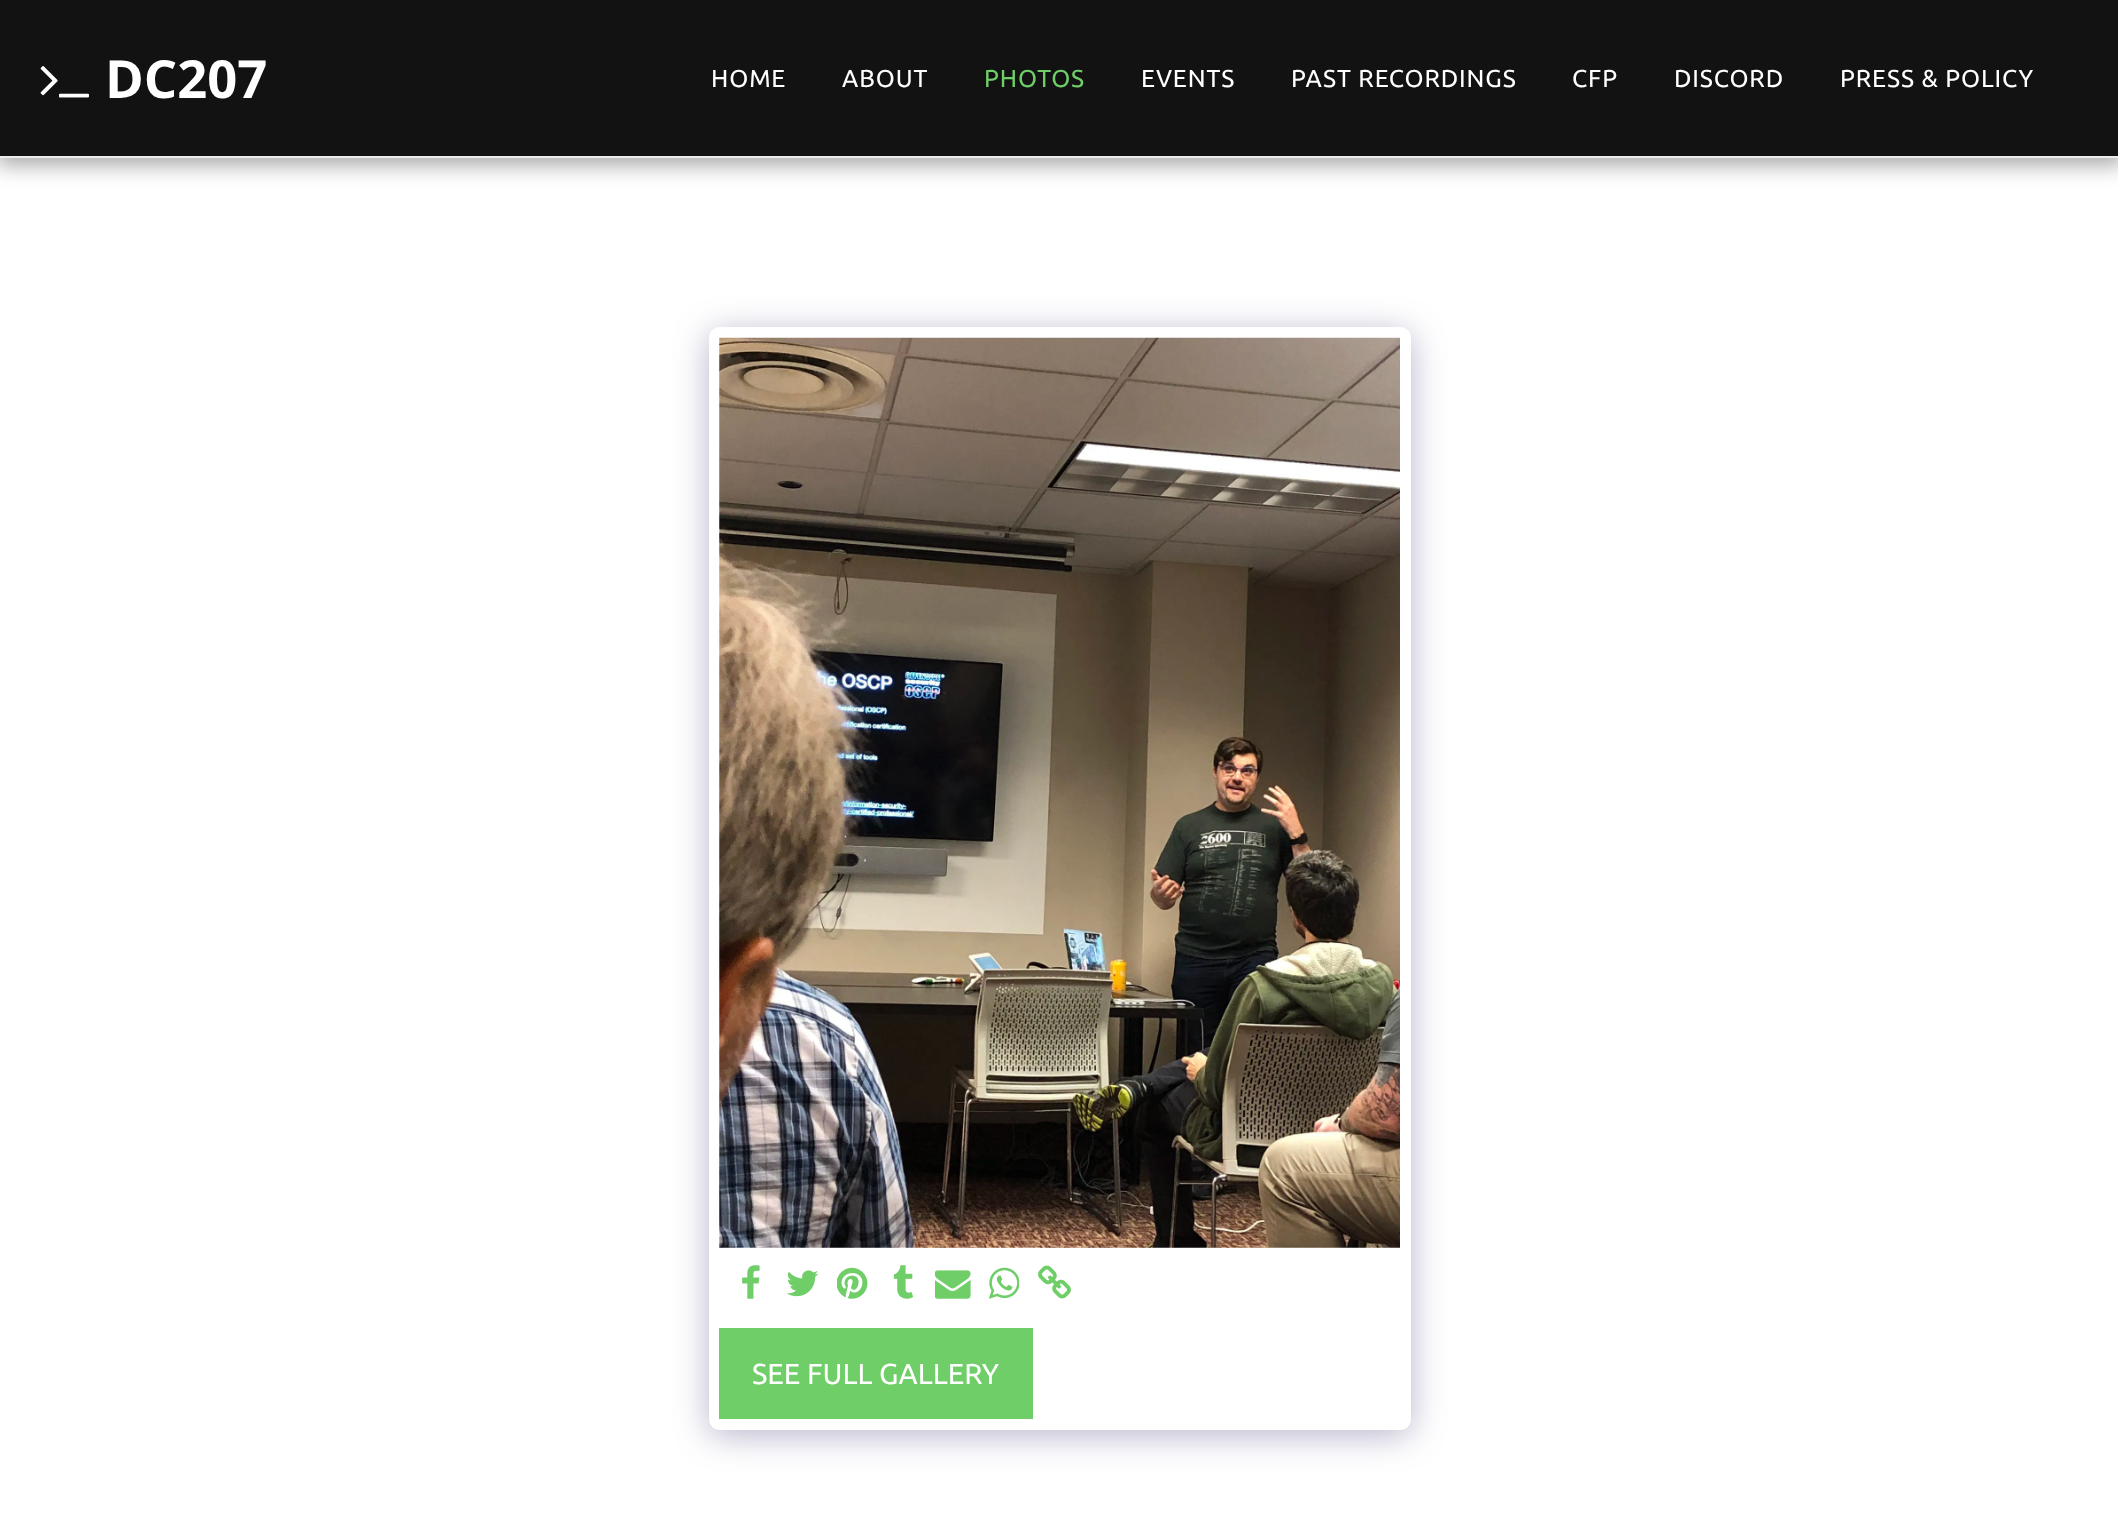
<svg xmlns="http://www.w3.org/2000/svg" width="2118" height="1514">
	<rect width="100%" height="100%" fill="#FFFFFF" />
	<rect x="-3" y="0" width="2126" height="165" fill="#000000" fill-opacity="0.35" filter="blur(10.5px)" />
	<rect x="0" y="0" width="2118" height="156" fill="#121212" />
	<rect x="0" y="156" width="2118" height="2" fill="#EBEBEB" />
	<image x="40" y="66" width="49" height="32" href="assets/img1.png" />
	<text x="105" y="98" font-family="Open Sans" font-size="52.5" font-weight="700" fill="#FFFFFF">DC207</text>
	<g font-family="Ubuntu" font-size="24.5" letter-spacing="0.9" fill="#FFFFFF">
		<text x="711" y="87">HOME</text>
		<text x="842" y="87">ABOUT</text>
	</g>
	<text x="984" y="87" font-family="Ubuntu" font-size="24.5" letter-spacing="0.9" fill="#6FCE67">PHOTOS</text>
	<g font-family="Ubuntu" font-size="24.5" letter-spacing="0.9" fill="#FFFFFF">
		<text x="1141" y="87">EVENTS</text>
		<text x="1291" y="87">PAST RECORDINGS</text>
		<text x="1572" y="87">CFP</text>
		<text x="1674" y="87">DISCORD</text>
		<text x="1840" y="87">PRESS &amp; POLICY</text>
	</g>
	<rect x="709" y="333" width="702" height="1102" rx="11" fill="#4D3F7A" fill-opacity="0.4" filter="blur(17.5px)" />
	<rect x="709" y="327" width="702" height="1103" rx="11" fill="#FFFFFF" />
	<image x="719" y="337" width="681" height="911" href="assets/img2.png" />
	<image x="742" y="1265" width="18" height="34" href="assets/img3.png" />
	<image x="786" y="1270" width="33" height="27" href="assets/img4.png" />
	<image x="837" y="1267" width="31" height="32" href="assets/img5.png" />
	<image x="893" y="1265" width="21" height="34" href="assets/img6.png" />
	<image x="935" y="1270" width="36" height="29" href="assets/img7.png" />
	<image x="989" y="1267" width="30" height="32" href="assets/img8.png" />
	<image x="1038" y="1265" width="33" height="34" href="assets/img9.png" />
	<rect x="719" y="1328" width="314" height="91" fill="#6FCE67" />
	<text x="752" y="1384" font-family="Ubuntu" font-size="28.9" fill="#FFFFFF">SEE FULL GALLERY</text>
</svg>
